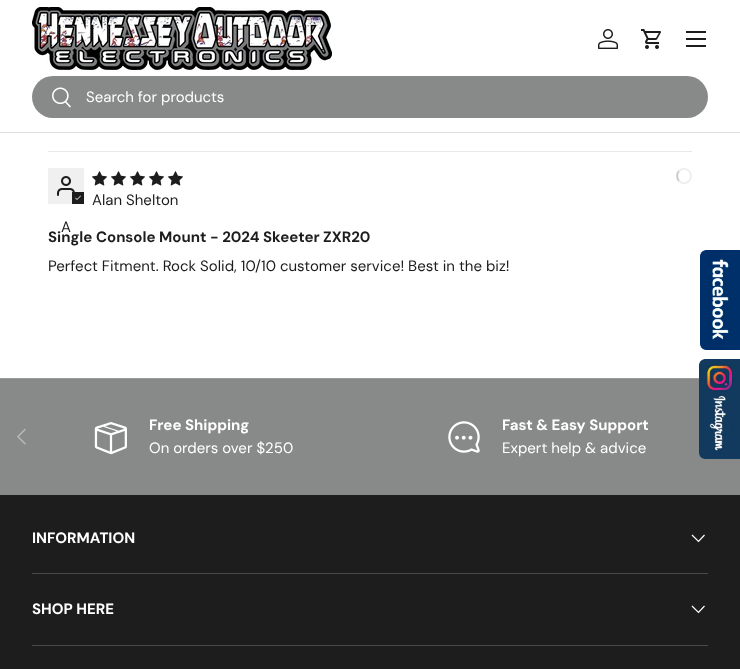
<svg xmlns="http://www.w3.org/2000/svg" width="740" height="669">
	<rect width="100%" height="100%" fill="#FFFFFF" />
	<rect x="0" y="132" width="740" height="1" fill="#DDDDDD" />
	<image x="32" y="7" width="300" height="63" href="assets/img1.png" />
	<image x="598" y="29" width="20" height="20" href="assets/img2.png" />
	<image x="641" y="29" width="20" height="20" href="assets/img3.png" />
	<rect x="686" y="31" width="20" height="2" fill="#1D1D1D" />
	<rect x="686" y="45" width="20" height="2" fill="#1D1D1D" />
	<rect x="686" y="38" width="20" height="2" fill="#1D1D1D" />
	<rect x="32" y="76" width="676" height="42" rx="21" fill="#888989" />
	<image x="52" y="87" width="19" height="21" href="assets/img4.png" />
	<text x="86" y="102" font-family="DM Sans" font-size="15" fill="#FFFFFF">Search for products</text>
	<rect x="48" y="151" width="644" height="1" fill="#E8E8E8" />
	<image x="92" y="171" width="15" height="15" href="assets/img5.png" />
	<image x="111" y="171" width="15" height="15" href="assets/img5.png" />
	<image x="130" y="171" width="15" height="15" href="assets/img5.png" />
	<image x="149" y="171" width="15" height="15" href="assets/img5.png" />
	<image x="168" y="171" width="15" height="15" href="assets/img5.png" />
	<path d="M679 171C680.5 169.5 682 169 684 169C692.5 169 693.5 181 685.5 183C683 183.5 680.5 182.5 679 181" fill="none" stroke="#EEEEEE" stroke-width="2" />
	<path d="M679 181C676.5 178.5 676.5 173.5 679 171" fill="none" stroke="#CCCCCC" stroke-width="2" />
	<text x="92" y="205" font-family="DM Sans" font-size="15" fill="#1D1D1D">Alan Shelton</text>
	<rect x="48" y="168" width="36" height="36" fill="#F0F0F0" />
	<image x="57" y="176" width="18" height="20" href="assets/img6.png" />
	<rect x="72" y="192" width="12" height="12" fill="#1D1D1D" />
	<image x="75" y="195" width="6" height="5" href="assets/img7.png" />
	<text x="61" y="232" font-family="DM Sans" font-size="15" fill="#1D1D1D">A</text>
	<text x="48" y="242" font-family="DM Sans" font-size="15" font-weight="700" fill="#1D1D1D">Single Console Mount - 2024 Skeeter ZXR20</text>
	<text x="48" y="271" font-family="DM Sans" font-size="15" fill="#1D1D1D">Perfect Fitment. Rock Solid, 10/10 customer service! Best in the biz!</text>
	<rect x="0" y="379" width="740" height="116" fill="#888989" />
	<rect x="0" y="378" width="699" height="1" fill="#9A9B9B" />
	<image x="17" y="428" width="9" height="17" href="assets/img8.png" />
	<image x="94" y="422" width="33" height="33" href="assets/img9.png" />
	<text x="149" y="430" font-family="DM Sans" font-size="15" font-weight="700" fill="#FFFFFF">Free Shipping</text>
	<text x="149" y="453" font-family="DM Sans" font-size="15" fill="#FFFFFF">On orders over $250</text>
	<image x="448" y="421" width="32" height="32" href="assets/img10.png" />
	<text x="502" y="430" font-family="DM Sans" font-size="15" font-weight="700" fill="#FFFFFF">Fast &amp; Easy Support</text>
	<text x="502" y="453" font-family="DM Sans" font-size="15" fill="#FFFFFF">Expert help &amp; advice</text>
	<image x="700" y="250" width="40" height="100" href="assets/img11.png" />
	<path d="M719 359H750V459H719C708 459 699 450 699 439V379C699 368 708 359 719 359Z" fill="#123A5E" />
	<image x="699" y="359" width="35" height="100" href="assets/img12.png" />
	<rect x="0" y="495" width="740" height="174" fill="#1D1D1D" />
	<rect x="32" y="573" width="676" height="1" fill="#4A4A4A" />
	<text x="32" y="543" font-family="DM Sans" font-size="15" font-weight="700" fill="#FFFFFF">INFORMATION</text>
	<path d="M704.5 535L698.5 541.5L692 535" fill="none" stroke="#FFFFFF" stroke-width="1.2" />
	<rect x="32" y="645" width="676" height="1" fill="#4A4A4A" />
	<text x="32" y="614" font-family="DM Sans" font-size="15" font-weight="700" fill="#FFFFFF">SHOP HERE</text>
	<path d="M704.5 606L698.5 612.5L692 606" fill="none" stroke="#FFFFFF" stroke-width="1.2" />
</svg>
